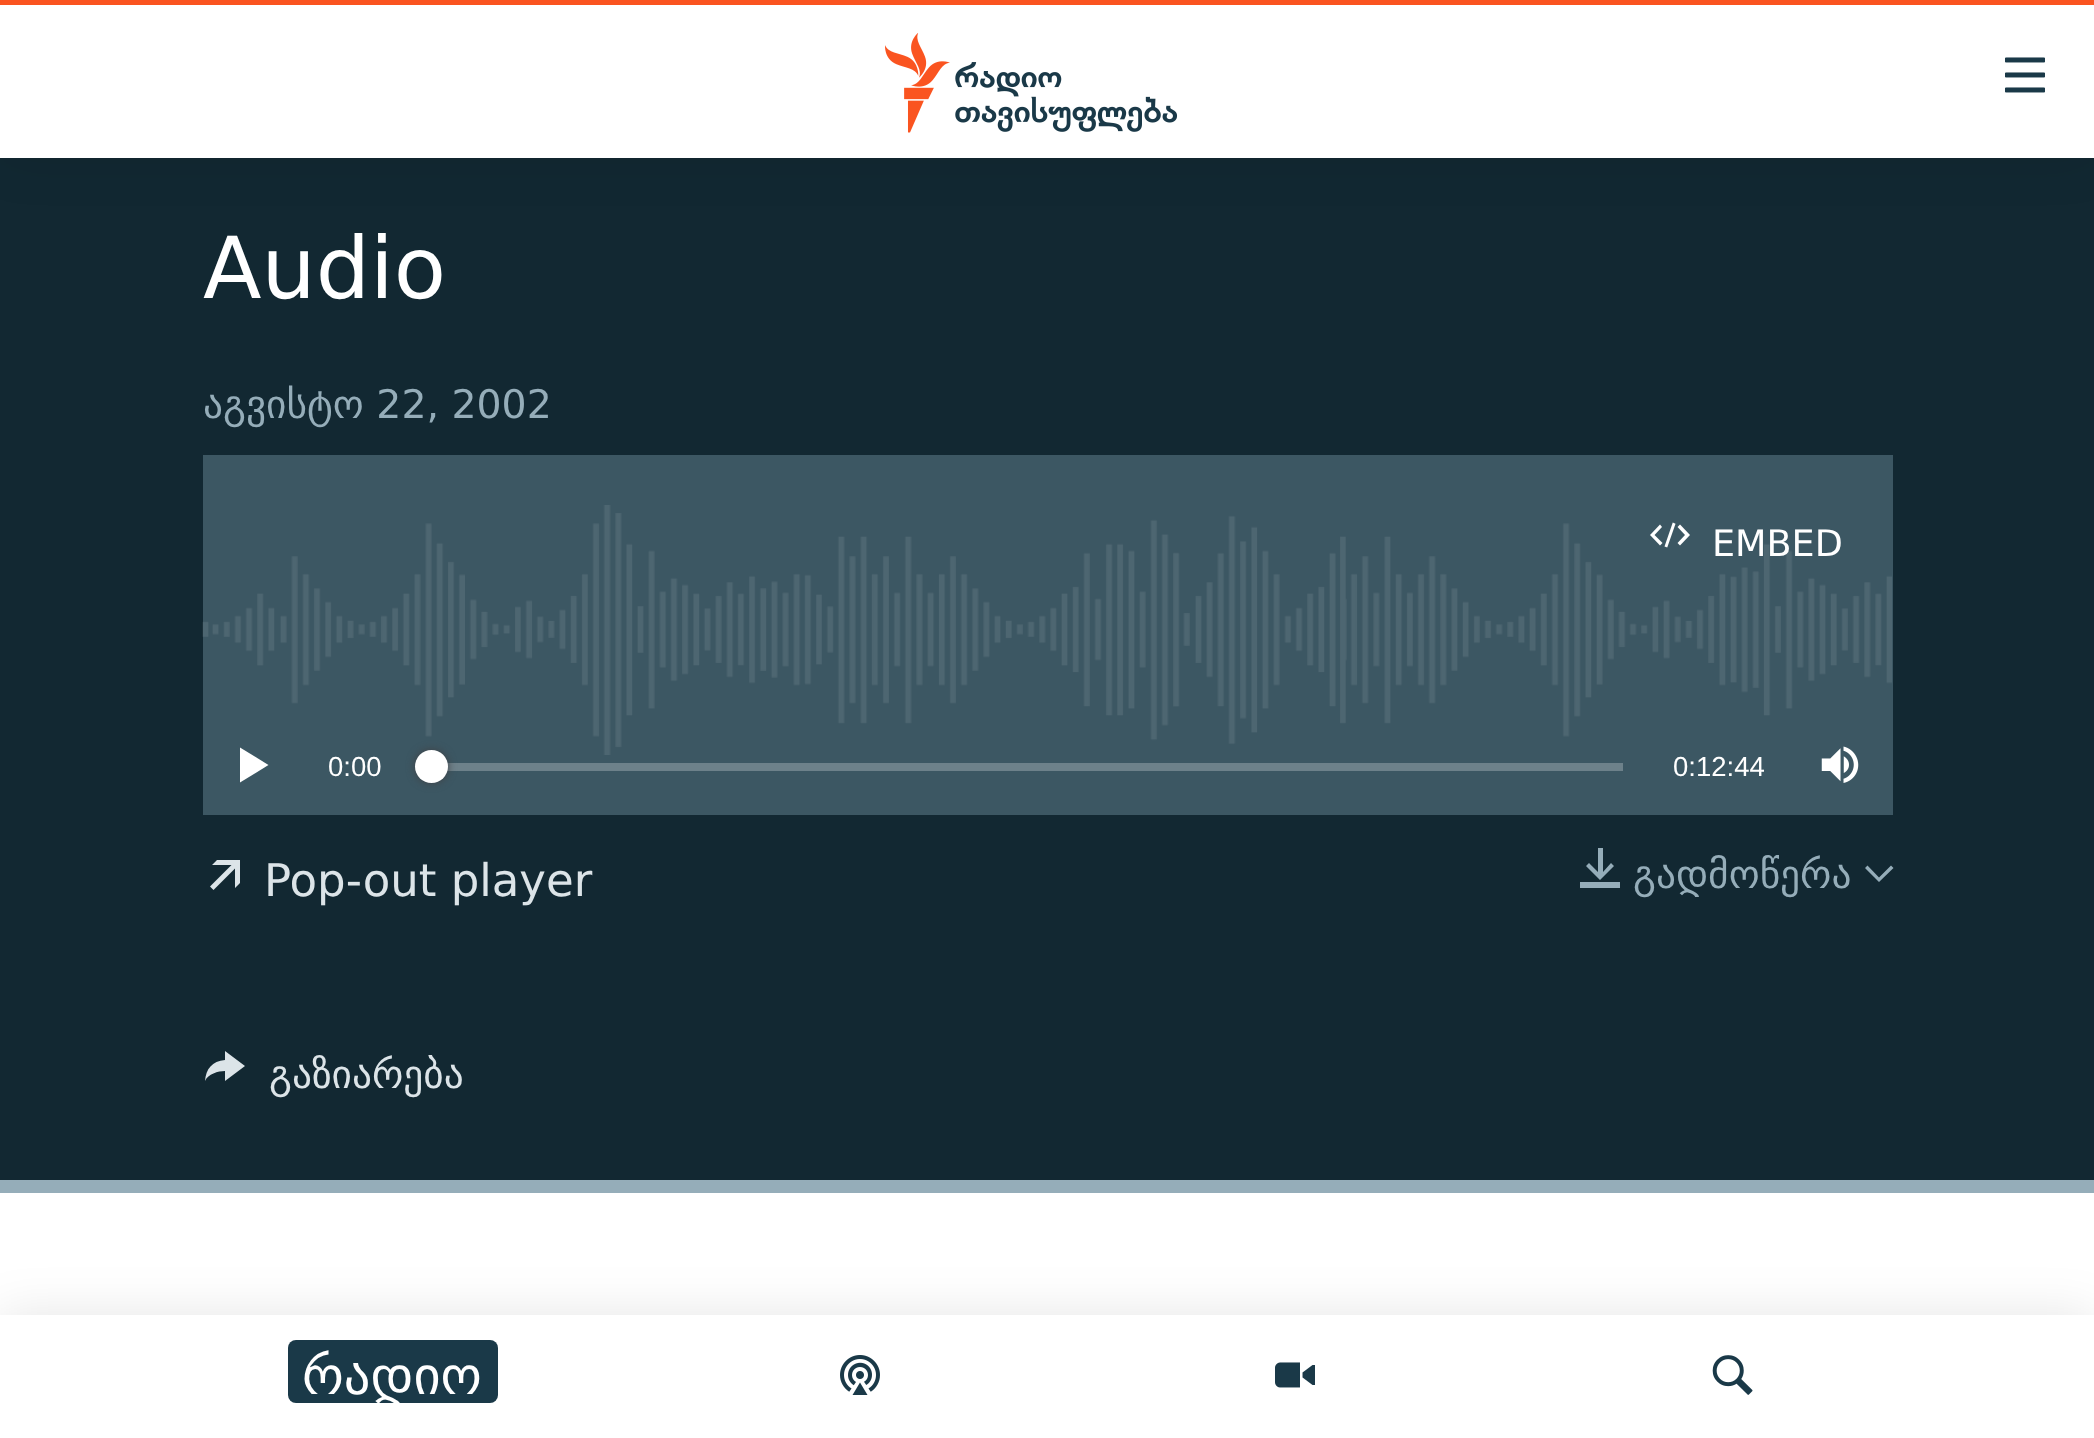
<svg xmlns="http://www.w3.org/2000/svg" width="2094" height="1438">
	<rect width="100%" height="100%" fill="#FFFFFF" />
	<rect x="0" y="158" width="2094" height="1022" fill="#122832" />
	<rect x="0" y="1180" width="2094" height="13" fill="#95ADB9" />
	<text x="203" y="298" font-family="DejaVu Sans" font-size="85.5" fill="#FFFFFF">Audio</text>
	<text x="203" y="418" font-family="DejaVu Sans" font-size="39.4" fill="#95ADB9">აგვისტო 22, 2002</text>
	<rect x="203" y="455" width="1690" height="360" fill="#3C5763" />
	<image x="202" y="505" width="1690" height="250" href="assets/img1.png" />
	<image x="1650" y="522" width="40" height="26" href="assets/img2.png" />
	<text x="1712" y="556" font-family="DejaVu Sans" font-size="36.5" fill="#FFFFFF">EMBED</text>
	<path d="M240 782.5L268.5 765L240 747.5Z" fill="#FFFFFF" />
	<text x="328" y="776" font-family="Liberation Sans" font-size="27.5" fill="#FFFFFF">0:00</text>
	<rect x="447" y="763" width="1176" height="8" fill="#6D818A" />
	<rect x="415" y="750" width="33" height="33" rx="16.5" fill="#414144" filter="blur(4px)" />
	<circle cx="431.5" cy="766.5" r="16.5" fill="#FFFFFF" />
	<text x="1673" y="776" font-family="Liberation Sans" font-size="27.5" fill="#FFFFFF">0:12:44</text>
	<image x="1821" y="746" width="38" height="37" href="assets/img3.png" />
	<path d="M240 860H217L212 865H231.5L210 886.5L213.5 890L235 868.5V888L240 883Z" fill="#DCE4E8" />
	<text x="264" y="896" font-family="DejaVu Sans" font-size="45" fill="#DCE4E8">Pop-out player</text>
	<path d="M1620 882V888H1580V882ZM1614 866L1611 863L1603 872V848H1598V872L1589 863L1586 866L1600 880Z" fill="#95ADB9" />
	<text x="1633" y="888" font-family="DejaVu Sans" font-size="39.4" fill="#95ADB9">გადმოწერა</text>
	<path d="M1865 868L1879 882L1893.5 868L1891 865.5L1879 877.5L1867.5 865.5Z" fill="#95ADB9" />
	<path d="M205 1081C206 1069 212 1061 225 1060V1051L245 1066L225 1081V1071C218 1071 208 1074 205 1081Z" fill="#DCE4E8" />
	<text x="269" y="1088" font-family="DejaVu Sans" font-size="39.4" fill="#DCE4E8">გაზიარება</text>
	<rect x="0" y="0" width="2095" height="158" fill="#000000" fill-opacity="0.1" filter="blur(25px)" />
	<rect x="0" y="5" width="2094" height="153" fill="#FFFFFF" />
	<rect x="0" y="0" width="2094" height="5" fill="#FA5420" />
	<image x="885" y="33" width="293" height="100" href="assets/img4.png" />
	<image x="2005" y="57" width="40" height="36" href="assets/img5.png" />
	<rect x="0" y="1315" width="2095" height="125" fill="#000000" fill-opacity="0.1" filter="blur(25px)" />
	<rect x="0" y="1315" width="2094" height="123" fill="#FFFFFF" />
	<rect x="288" y="1340" width="210" height="63" rx="8" fill="#1A3948" />
	<text x="302" y="1394" font-family="DejaVu Sans" font-size="52.5" fill="#FFFFFF">რადიო</text>
	<image x="840" y="1355" width="40" height="40" href="assets/img6.png" />
	<image x="1275" y="1362" width="40" height="26" href="assets/img7.png" />
	<image x="1712" y="1355" width="41" height="40" href="assets/img8.png" />
</svg>
